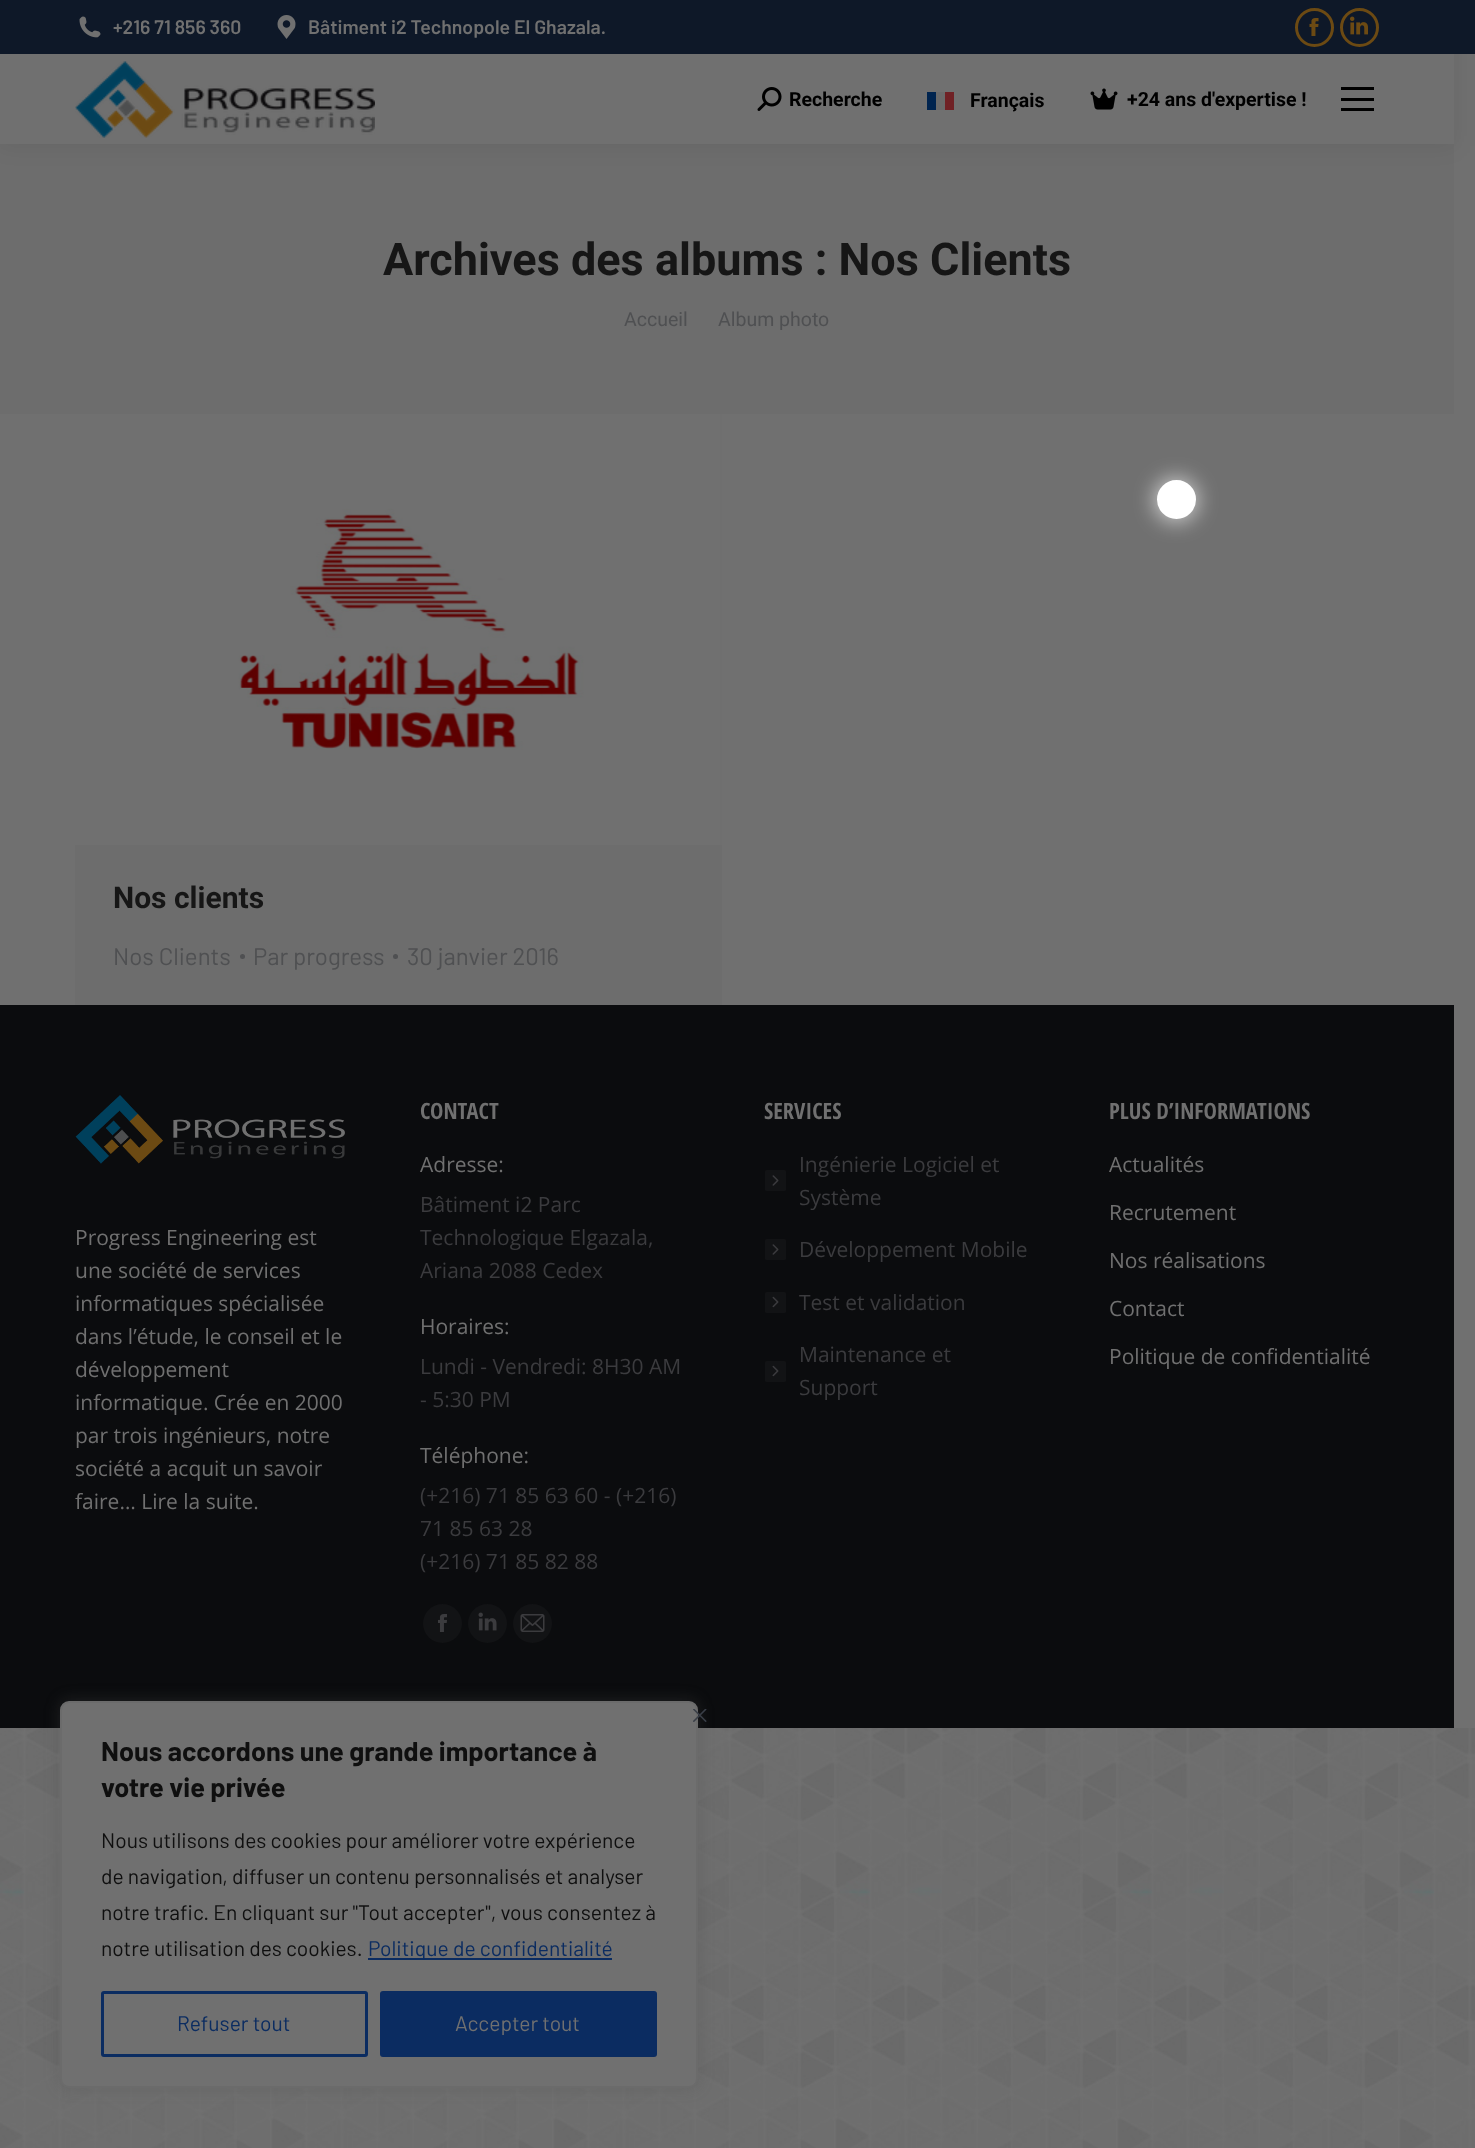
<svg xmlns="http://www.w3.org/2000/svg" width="1475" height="2148">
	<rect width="100%" height="100%" fill="#FFFFFF" />
	<image x="0" y="1728" width="1475" height="420" href="assets/img1.png" />
	<rect x="0" y="54" width="1475" height="1674" fill="#707070" />
	<rect x="0" y="144" width="1454" height="270" fill="#6D6D6D" />
	<rect x="-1" y="-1" width="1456" height="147" fill="#000000" fill-opacity="0.07" filter="blur(11px)" />
	<rect x="0" y="54" width="1454" height="90" fill="#707070" />
	<rect x="0" y="0" width="1475" height="54" fill="#0E1828" />
	<image x="79" y="16" width="22" height="22" href="assets/img2.png" />
	<text x="113" y="34" font-family="Barlow" font-size="19.5" font-weight="600" fill="#707070">+216 71 856 360</text>
	<image x="277" y="15" width="19" height="24" href="assets/img3.png" />
	<text x="308" y="34" font-family="Barlow" font-size="19.5" font-weight="600" fill="#707070">Bâtiment i2 Technopole El Ghazala.</text>
	<circle cx="1314.5" cy="27.5" r="18" fill="none" stroke="#6C4A13" stroke-width="3" />
	<image x="1309" y="18" width="10" height="18" href="assets/img4.png" />
	<circle cx="1359.5" cy="27.5" r="18" fill="none" stroke="#6C4A13" stroke-width="3" />
	<image x="1350" y="16" width="18" height="19" href="assets/img5.png" />
	<image x="75" y="61" width="300" height="77" href="assets/img6.png" />
	<image x="757" y="87" width="25" height="24" href="assets/img7.png" />
	<text x="789" y="106" font-family="Roboto" font-size="19.5" font-weight="700" fill="#000000">Recherche</text>
	<rect x="927" y="92" width="9" height="18" fill="#00244F" />
	<rect x="936" y="92" width="9" height="18" fill="#6A6A6A" />
	<rect x="945" y="92" width="9" height="18" fill="#702125" />
	<text x="970" y="107" font-family="Roboto" font-size="19.5" font-weight="700" fill="#000000">Français</text>
	<image x="1090" y="88" width="28" height="22" href="assets/img8.png" />
	<text x="1127" y="106" font-family="Roboto" font-size="19.5" font-weight="700" fill="#000000">+24 ans d'expertise !</text>
	<rect x="1341" y="87" width="33" height="3" fill="#000000" />
	<rect x="1341" y="98" width="33" height="3" fill="#000000" />
	<rect x="1341" y="108" width="33" height="3" fill="#000000" />
	<text x="383" y="275" font-family="Roboto" font-size="45" font-weight="700" fill="#161616">Archives des albums : Nos Clients</text>
	<g font-family="Roboto" font-size="19.5" fill="#4F5052">
		<text x="624" y="326">Accueil</text>
		<text x="718" y="326">Album photo</text>
	</g>
	<rect x="75" y="414" width="647" height="591" fill="#6D6D6D" />
	<image x="75" y="414" width="647" height="431" href="assets/img9.png" />
	<text x="113" y="908" font-family="Roboto" font-size="30" font-weight="700" fill="#161616">Nos clients</text>
	<text x="113" y="965" font-family="Barlow" font-size="24" fill="#4F5052">Nos Clients</text>
	<circle cx="242.5" cy="956.5" r="2.5" fill="#4F5052" />
	<text x="253" y="965" font-family="Barlow" font-size="24" fill="#4F5052">Par progress</text>
	<circle cx="395.5" cy="956.5" r="2.5" fill="#4F5052" />
	<text x="407" y="965" font-family="Barlow" font-size="24" fill="#4F5052">30 janvier 2016</text>
	<rect x="0" y="1005" width="1454" height="723" fill="#0B0C0E" />
	<image x="75" y="1095" width="270" height="69" href="assets/img10.png" />
	<g font-family="Open Sans" font-size="21" fill="#707070">
		<text x="75" y="1245">Progress Engineering est</text>
		<text x="75" y="1278">une société de services</text>
		<text x="75" y="1311">informatiques spécialisée</text>
		<text x="75" y="1344">dans l’étude, le conseil et le</text>
		<text x="75" y="1377">développement</text>
		<text x="75" y="1410">informatique. Crée en 2000</text>
		<text x="75" y="1443">par trois ingénieurs, notre</text>
		<text x="75" y="1476">société a acquit un savoir</text>
		<text x="75" y="1509">faire… Lire la suite.</text>
	</g>
	<text x="420" y="1119" font-family="Open Sans Condensed" font-size="22.5" font-weight="700" fill="#707070">CONTACT</text>
	<text x="420" y="1172" font-family="Open Sans" font-size="21" fill="#707070">Adresse:</text>
	<g font-family="Open Sans" font-size="21" fill="#3B3B3E">
		<text x="420" y="1212">Bâtiment i2 Parc</text>
		<text x="420" y="1245">Technologique Elgazala,</text>
		<text x="420" y="1278">Ariana 2088 Cedex</text>
	</g>
	<text x="420" y="1334" font-family="Open Sans" font-size="21" fill="#707070">Horaires:</text>
	<g font-family="Open Sans" font-size="21" fill="#3B3B3E">
		<text x="420" y="1374">Lundi - Vendredi: 8H30 AM</text>
		<text x="420" y="1407">- 5:30 PM</text>
	</g>
	<text x="420" y="1463" font-family="Open Sans" font-size="21" fill="#707070">Téléphone:</text>
	<g font-family="Open Sans" font-size="21" fill="#3B3B3E">
		<text x="420" y="1503">(+216) 71 85 63 60 - (+216)</text>
		<text x="420" y="1536">71 85 63 28</text>
		<text x="420" y="1569">(+216) 71 85 82 88</text>
	</g>
	<circle cx="442.5" cy="1623.5" r="19.5" fill="#121315" />
	<image x="438" y="1614" width="9" height="18" href="assets/img11.png" />
	<circle cx="487.5" cy="1623.5" r="19.5" fill="#121315" />
	<image x="478" y="1612" width="19" height="19" href="assets/img12.png" />
	<circle cx="532.5" cy="1623.5" r="19.5" fill="#121315" />
	<image x="520" y="1614" width="25" height="18" href="assets/img13.png" />
	<text x="764" y="1119" font-family="Open Sans Condensed" font-size="22.5" font-weight="700" fill="#707070">SERVICES</text>
	<text x="799" y="1172" font-family="Open Sans" font-size="21" fill="#3B3B3E">Ingénierie Logiciel et</text>
	<rect x="765" y="1170" width="21" height="21" rx="1.5" fill="#121315" />
	<image x="772" y="1175" width="7" height="11" href="assets/img14.png" />
	<text x="799" y="1205" font-family="Open Sans" font-size="21" fill="#3B3B3E">Système</text>
	<rect x="765" y="1239" width="21" height="21" rx="1.5" fill="#121315" />
	<text x="799" y="1257" font-family="Open Sans" font-size="21" fill="#3B3B3E">Développement Mobile</text>
	<image x="772" y="1244" width="7" height="11" href="assets/img14.png" />
	<rect x="765" y="1292" width="21" height="21" rx="1.5" fill="#121315" />
	<text x="799" y="1310" font-family="Open Sans" font-size="21" fill="#3B3B3E">Test et validation</text>
	<image x="772" y="1296" width="7" height="12" href="assets/img15.png" />
	<text x="799" y="1362" font-family="Open Sans" font-size="21" fill="#3B3B3E">Maintenance et</text>
	<rect x="765" y="1361" width="21" height="21" rx="1.5" fill="#121315" />
	<image x="772" y="1365" width="7" height="12" href="assets/img15.png" />
	<text x="799" y="1395" font-family="Open Sans" font-size="21" fill="#3B3B3E">Support</text>
	<text x="1109" y="1119" font-family="Open Sans Condensed" font-size="22.5" font-weight="700" fill="#707070">PLUS D’INFORMATIONS</text>
	<g font-family="Open Sans" font-size="21" fill="#707070">
		<text x="1109" y="1172">Actualités</text>
		<text x="1109" y="1220">Recrutement</text>
		<text x="1109" y="1268">Nos réalisations</text>
		<text x="1109" y="1316">Contact</text>
		<text x="1109" y="1364">Politique de confidentialité</text>
	</g>
	<rect x="1155" y="479" width="42" height="42" rx="21" fill="#FFFFFF" fill-opacity="0.75" filter="blur(11px)" />
	<circle cx="1176.5" cy="499.5" r="18" fill="#FFFFFF" stroke="#FFFFFF" stroke-width="3" />
	<rect x="60" y="1700" width="638" height="387" rx="9" fill="#4C4B4B" fill-opacity="0.3" filter="blur(7.5px)" />
	<rect x="61" y="1702" width="636" height="385" rx="8" fill="#707070" stroke="#6B6B6B" stroke-width="2" />
	<image x="693" y="1709" width="14" height="13" href="assets/img16.png" />
	<g font-family="Barlow" font-size="27" font-weight="700" fill="#0F0F0F">
		<text x="101" y="1761">Nous accordons une grande importance à</text>
		<text x="101" y="1797">votre vie privée</text>
	</g>
	<g font-family="Barlow" font-size="21" fill="#0F0F0F">
		<text x="101" y="1848">Nous utilisons des cookies pour améliorer votre expérience</text>
		<text x="101" y="1884">de navigation, diffuser un contenu personnalisés et analyser</text>
		<text x="101" y="1920">notre trafic. En cliquant sur "Tout accepter", vous consentez à</text>
		<text x="101" y="1956">notre utilisation des cookies.</text>
	</g>
	<rect x="368" y="1958" width="244" height="2" fill="#0B2C61" />
	<text x="368" y="1956" font-family="Barlow" font-size="21" fill="#0B2C61">Politique de confidentialité</text>
	<rect x="102.5" y="1992.5" width="264" height="63" rx="1.5" fill="none" stroke="#0B2C61" stroke-width="3" />
	<text x="177" y="2031" font-family="Barlow" font-size="21" fill="#0B2C61">Refuser tout</text>
	<rect x="381.5" y="1992.5" width="274" height="63" rx="1.5" fill="#0B2C61" stroke="#0B2C61" stroke-width="3" />
	<text x="455" y="2031" font-family="Barlow" font-size="21" fill="#707070">Accepter tout</text>
</svg>
